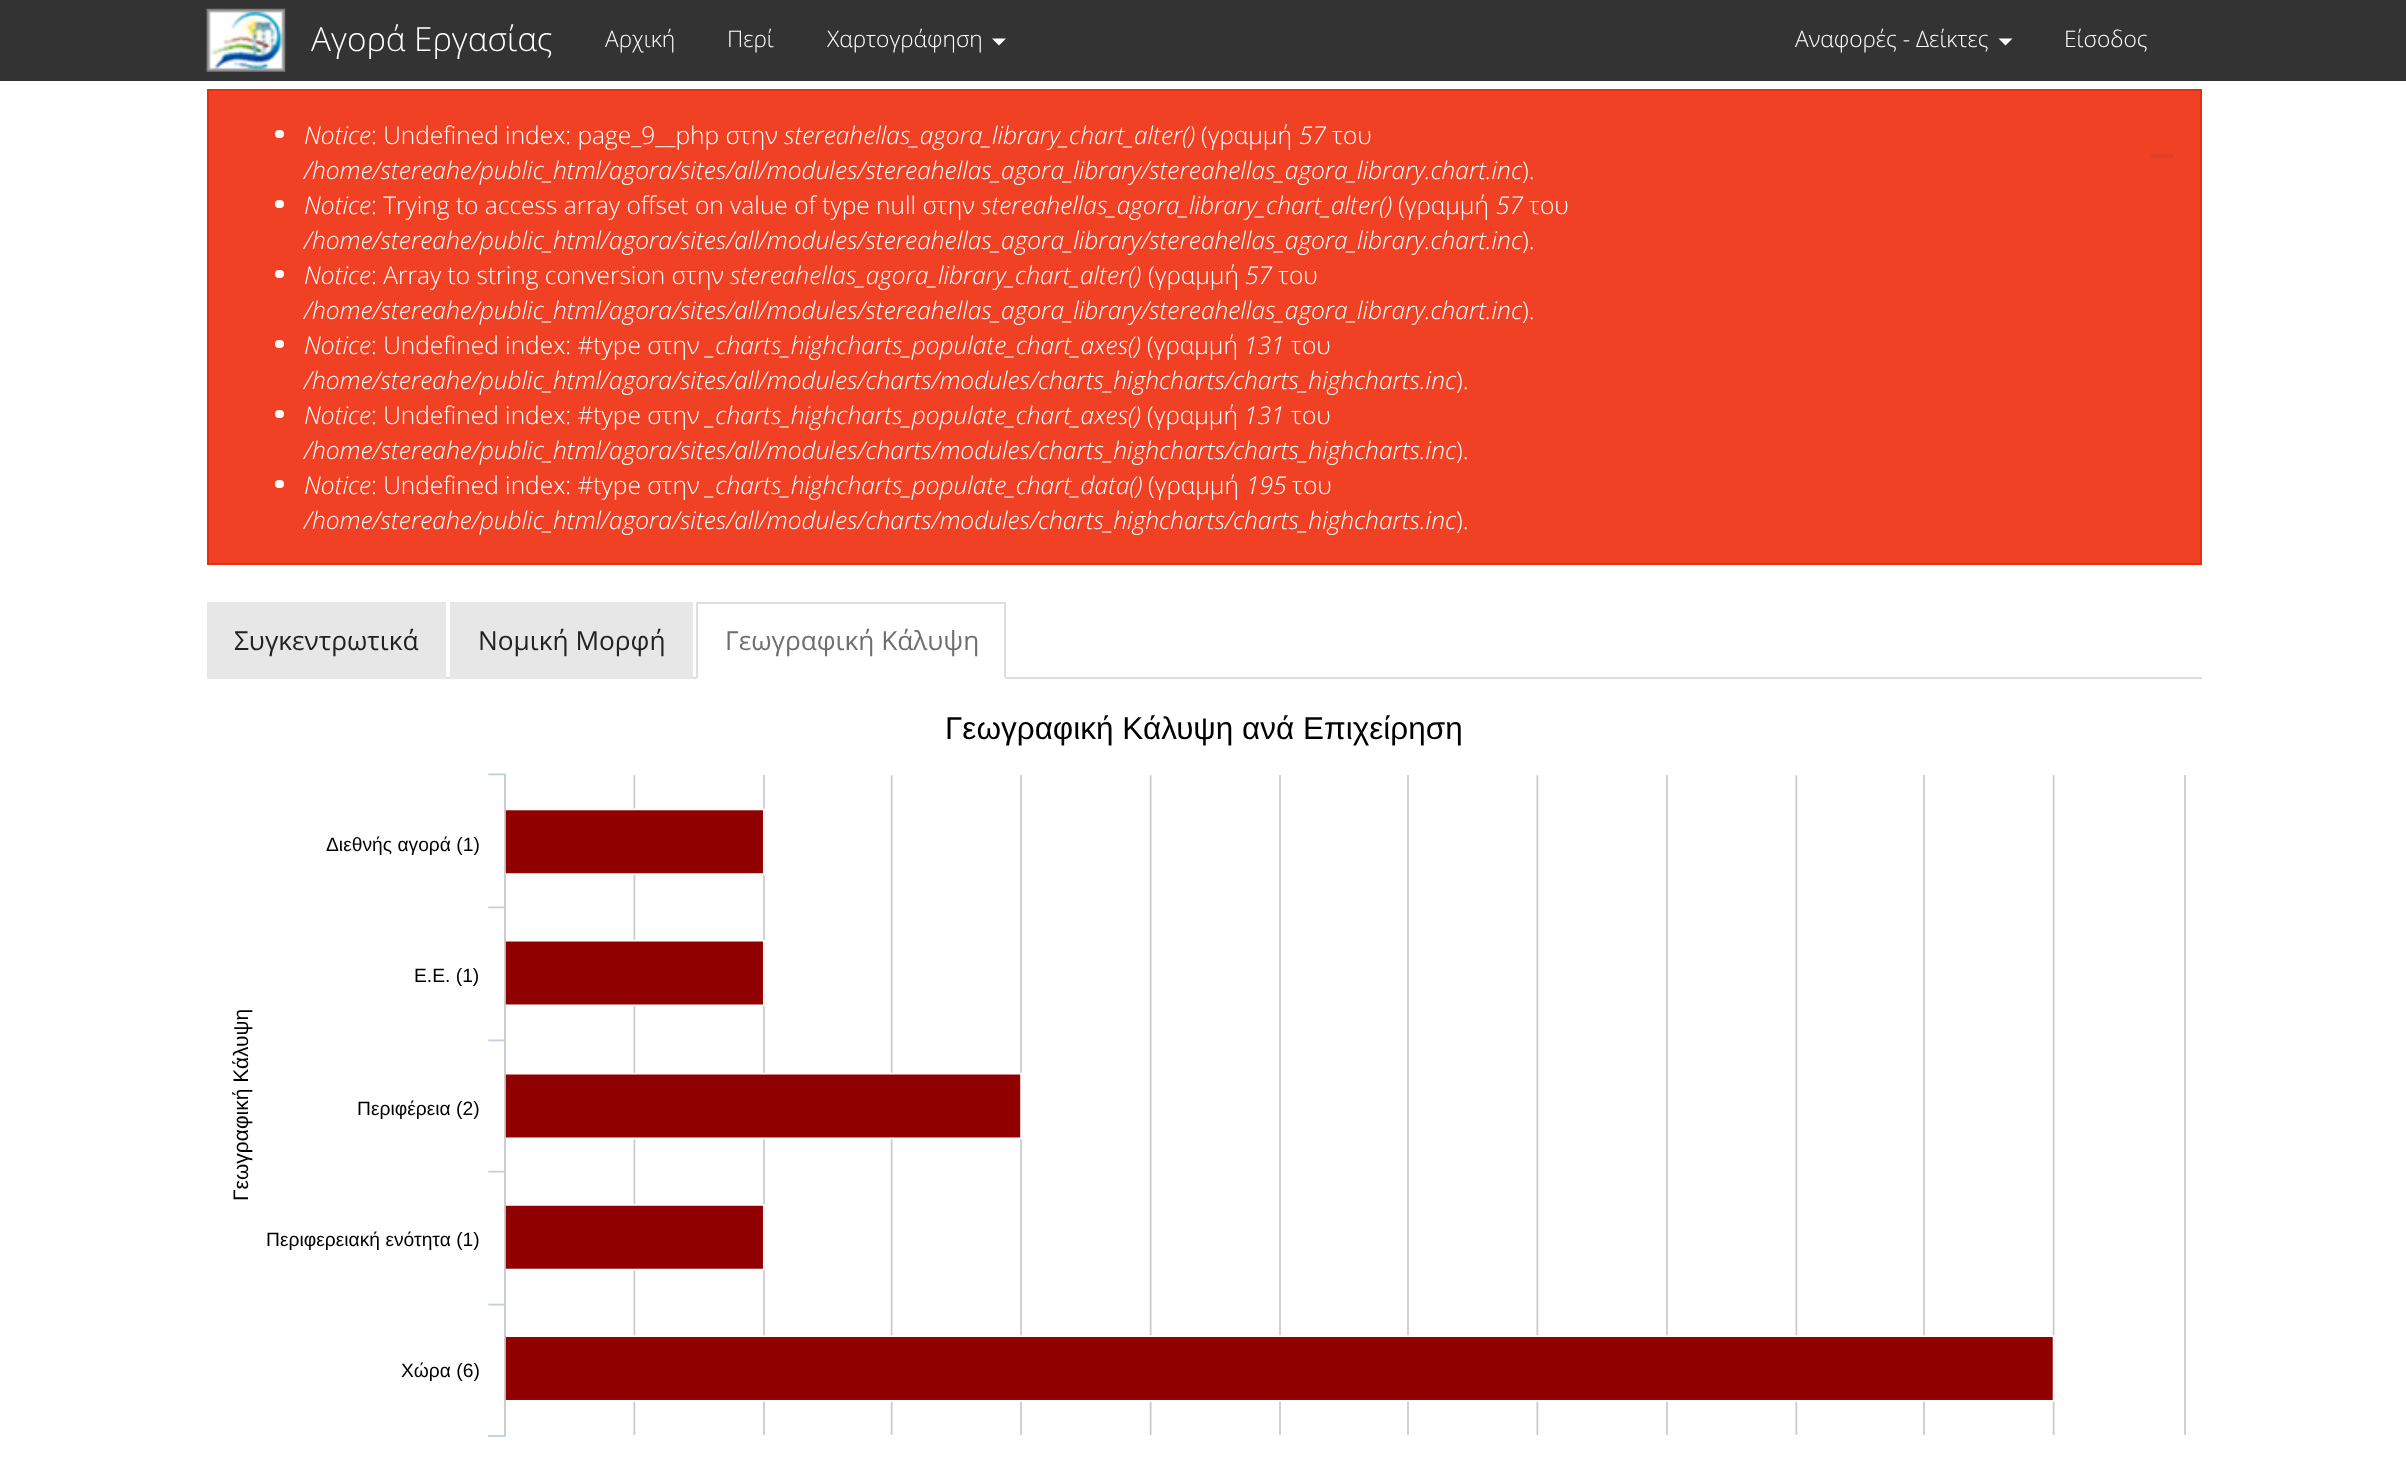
<svg xmlns="http://www.w3.org/2000/svg" width="2406" height="1470">
	<rect width="100%" height="100%" fill="#FFFFFF" />
	<rect x="0" y="0" width="2406" height="81" fill="#333333" />
	<image x="206" y="8" width="80" height="64" href="assets/img1.png" />
	<text x="311" y="51" font-family="Open Sans" font-size="33.25" font-weight="300" fill="#FFFFFF">Αγορά Εργασίας</text>
	<g font-family="Open Sans" font-size="22.75" font-weight="300" fill="#FFFFFF">
		<text x="605" y="47">Αρχική</text>
		<text x="727" y="47">Περί</text>
		<text x="827" y="47">Χαρτογράφηση</text>
	</g>
	<path d="M992 38.5H1006L999 45.5Z" fill="#FFFFFF" />
	<text x="1795" y="47" font-family="Open Sans" font-size="22.75" font-weight="300" fill="#FFFFFF">Αναφορές - Δείκτες</text>
	<path d="M1998.5 38.5H2012.5L2005.5 45.5Z" fill="#FFFFFF" />
	<text x="2064" y="47" font-family="Open Sans" font-size="22.75" font-weight="300" fill="#FFFFFF">Είσοδος</text>
	<rect x="208" y="90" width="1993" height="474" fill="#F04124" stroke="#EA2F10" stroke-width="2" />
	<rect x="275" y="130" width="9" height="8" rx="4" fill="#FFFFFF" />
	<text x="304" y="144" font-family="Open Sans" font-size="24.5" font-weight="300" font-style="italic" fill="#FFFFFF">Notice</text>
	<text x="371" y="144" font-family="Open Sans" font-size="24.5" font-weight="300" fill="#FFFFFF">: Undefined index: page_9__php στην</text>
	<text x="784" y="144" font-family="Open Sans" font-size="24.5" font-weight="300" font-style="italic" fill="#FFFFFF">stereahellas_agora_library_chart_alter()</text>
	<text x="1201" y="144" font-family="Open Sans" font-size="24.5" font-weight="300" fill="#FFFFFF">(γραμμή</text>
	<text x="1299" y="144" font-family="Open Sans" font-size="24.5" font-weight="300" font-style="italic" fill="#FFFFFF">57</text>
	<text x="1332" y="144" font-family="Open Sans" font-size="24.5" font-weight="300" fill="#FFFFFF">του</text>
	<text x="304" y="179" font-family="Open Sans" font-size="24.5" font-weight="300" font-style="italic" fill="#FFFFFF">/home/stereahe/public_html/agora/sites/all/modules/stereahellas_agora_library/stereahellas_agora_library.chart.inc</text>
	<text x="1522" y="179" font-family="Open Sans" font-size="24.5" font-weight="300" fill="#FFFFFF">).</text>
	<rect x="275" y="200" width="9" height="8" rx="4" fill="#FFFFFF" />
	<text x="304" y="214" font-family="Open Sans" font-size="24.5" font-weight="300" font-style="italic" fill="#FFFFFF">Notice</text>
	<text x="371" y="214" font-family="Open Sans" font-size="24.5" font-weight="300" fill="#FFFFFF">: Trying to access array offset on value of type null στην</text>
	<text x="981" y="214" font-family="Open Sans" font-size="24.5" font-weight="300" font-style="italic" fill="#FFFFFF">stereahellas_agora_library_chart_alter()</text>
	<text x="1398" y="214" font-family="Open Sans" font-size="24.5" font-weight="300" fill="#FFFFFF">(γραμμή</text>
	<text x="1496" y="214" font-family="Open Sans" font-size="24.5" font-weight="300" font-style="italic" fill="#FFFFFF">57</text>
	<text x="1529" y="214" font-family="Open Sans" font-size="24.5" font-weight="300" fill="#FFFFFF">του</text>
	<text x="304" y="249" font-family="Open Sans" font-size="24.5" font-weight="300" font-style="italic" fill="#FFFFFF">/home/stereahe/public_html/agora/sites/all/modules/stereahellas_agora_library/stereahellas_agora_library.chart.inc</text>
	<text x="1522" y="249" font-family="Open Sans" font-size="24.5" font-weight="300" fill="#FFFFFF">).</text>
	<rect x="275" y="270" width="9" height="8" rx="4" fill="#FFFFFF" />
	<text x="304" y="284" font-family="Open Sans" font-size="24.5" font-weight="300" font-style="italic" fill="#FFFFFF">Notice</text>
	<text x="371" y="284" font-family="Open Sans" font-size="24.5" font-weight="300" fill="#FFFFFF">: Array to string conversion στην</text>
	<text x="730" y="284" font-family="Open Sans" font-size="24.5" font-weight="300" font-style="italic" fill="#FFFFFF">stereahellas_agora_library_chart_alter()</text>
	<text x="1148" y="284" font-family="Open Sans" font-size="24.5" font-weight="300" fill="#FFFFFF">(γραμμή</text>
	<text x="1245" y="284" font-family="Open Sans" font-size="24.5" font-weight="300" font-style="italic" fill="#FFFFFF">57</text>
	<text x="1278" y="284" font-family="Open Sans" font-size="24.5" font-weight="300" fill="#FFFFFF">του</text>
	<text x="304" y="319" font-family="Open Sans" font-size="24.5" font-weight="300" font-style="italic" fill="#FFFFFF">/home/stereahe/public_html/agora/sites/all/modules/stereahellas_agora_library/stereahellas_agora_library.chart.inc</text>
	<text x="1522" y="319" font-family="Open Sans" font-size="24.5" font-weight="300" fill="#FFFFFF">).</text>
	<rect x="275" y="340" width="9" height="8" rx="4" fill="#FFFFFF" />
	<text x="304" y="354" font-family="Open Sans" font-size="24.5" font-weight="300" font-style="italic" fill="#FFFFFF">Notice</text>
	<text x="371" y="354" font-family="Open Sans" font-size="24.5" font-weight="300" fill="#FFFFFF">: Undefined index: #type στην</text>
	<text x="706" y="354" font-family="Open Sans" font-size="24.5" font-weight="300" font-style="italic" fill="#FFFFFF">_charts_highcharts_populate_chart_axes()</text>
	<text x="1147" y="354" font-family="Open Sans" font-size="24.5" font-weight="300" fill="#FFFFFF">(γραμμή</text>
	<text x="1244" y="354" font-family="Open Sans" font-size="24.5" font-weight="300" font-style="italic" fill="#FFFFFF">131</text>
	<text x="1291" y="354" font-family="Open Sans" font-size="24.5" font-weight="300" fill="#FFFFFF">του</text>
	<text x="304" y="389" font-family="Open Sans" font-size="24.5" font-weight="300" font-style="italic" fill="#FFFFFF">/home/stereahe/public_html/agora/sites/all/modules/charts/modules/charts_highcharts/charts_highcharts.inc</text>
	<text x="1456" y="389" font-family="Open Sans" font-size="24.5" font-weight="300" fill="#FFFFFF">).</text>
	<rect x="275" y="410" width="9" height="8" rx="4" fill="#FFFFFF" />
	<text x="304" y="424" font-family="Open Sans" font-size="24.5" font-weight="300" font-style="italic" fill="#FFFFFF">Notice</text>
	<text x="371" y="424" font-family="Open Sans" font-size="24.5" font-weight="300" fill="#FFFFFF">: Undefined index: #type στην</text>
	<text x="706" y="424" font-family="Open Sans" font-size="24.5" font-weight="300" font-style="italic" fill="#FFFFFF">_charts_highcharts_populate_chart_axes()</text>
	<text x="1147" y="424" font-family="Open Sans" font-size="24.5" font-weight="300" fill="#FFFFFF">(γραμμή</text>
	<text x="1244" y="424" font-family="Open Sans" font-size="24.5" font-weight="300" font-style="italic" fill="#FFFFFF">131</text>
	<text x="1291" y="424" font-family="Open Sans" font-size="24.5" font-weight="300" fill="#FFFFFF">του</text>
	<text x="304" y="459" font-family="Open Sans" font-size="24.5" font-weight="300" font-style="italic" fill="#FFFFFF">/home/stereahe/public_html/agora/sites/all/modules/charts/modules/charts_highcharts/charts_highcharts.inc</text>
	<text x="1456" y="459" font-family="Open Sans" font-size="24.5" font-weight="300" fill="#FFFFFF">).</text>
	<rect x="275" y="480" width="9" height="8" rx="4" fill="#FFFFFF" />
	<text x="304" y="494" font-family="Open Sans" font-size="24.5" font-weight="300" font-style="italic" fill="#FFFFFF">Notice</text>
	<text x="371" y="494" font-family="Open Sans" font-size="24.5" font-weight="300" fill="#FFFFFF">: Undefined index: #type στην</text>
	<text x="706" y="494" font-family="Open Sans" font-size="24.5" font-weight="300" font-style="italic" fill="#FFFFFF">_charts_highcharts_populate_chart_data()</text>
	<text x="1148" y="494" font-family="Open Sans" font-size="24.5" font-weight="300" fill="#FFFFFF">(γραμμή</text>
	<text x="1246" y="494" font-family="Open Sans" font-size="24.5" font-weight="300" font-style="italic" fill="#FFFFFF">195</text>
	<text x="1292" y="494" font-family="Open Sans" font-size="24.5" font-weight="300" fill="#FFFFFF">του</text>
	<text x="304" y="529" font-family="Open Sans" font-size="24.5" font-weight="300" font-style="italic" fill="#FFFFFF">/home/stereahe/public_html/agora/sites/all/modules/charts/modules/charts_highcharts/charts_highcharts.inc</text>
	<text x="1456" y="529" font-family="Open Sans" font-size="24.5" font-weight="300" fill="#FFFFFF">).</text>
	<rect x="2151" y="154" width="23" height="4" fill="#DE4028" />
	<rect x="446" y="677" width="1756" height="2" fill="#DDDDDD" />
	<rect x="207" y="602" width="239" height="77" fill="#E7E7E7" />
	<text x="234" y="650" font-family="Open Sans" font-size="26.25" fill="#222222">Συγκεντρωτικά</text>
	<rect x="450" y="602" width="243" height="77" fill="#E7E7E7" />
	<text x="478" y="650" font-family="Open Sans" font-size="26.25" fill="#222222">Νομική Μορφή</text>
	<rect x="697" y="677" width="309" height="2" fill="#FFFFFF" />
	<rect x="697" y="602" width="309" height="2" fill="#DDDDDD" />
	<path d="M1006 602V679L1004 677V604Z" fill="#DDDDDD" />
	<path d="M696 679V602L698 604V677Z" fill="#DDDDDD" />
	<text x="725" y="650" font-family="Open Sans" font-size="26.25" fill="#6F6F6F">Γεωγραφική Κάλυψη</text>
	<text x="945" y="739" font-family="Liberation Sans" font-size="31.5" fill="#000000">Γεωγραφική Κάλυψη ανά Επιχείρηση</text>
	<text x="326" y="851" font-family="Liberation Sans" font-size="19.25" fill="#000000">Διεθνής αγορά (1)</text>
	<image x="488" y="773" width="1698" height="664" href="assets/img2.png" />
	<text x="414" y="982" font-family="Liberation Sans" font-size="19.25" fill="#000000">Ε.Ε. (1)</text>
	<text x="248" y="1201" transform="rotate(-90 248 1201)" font-family="Liberation Sans" font-size="21" fill="#000000">Γεωγραφική Κάλυψη</text>
	<g font-family="Liberation Sans" font-size="19.25" fill="#000000">
		<text x="357" y="1115">Περιφέρεια (2)</text>
		<text x="266" y="1246">Περιφερειακή ενότητα (1)</text>
		<text x="401" y="1377">Χώρα (6)</text>
	</g>
</svg>
